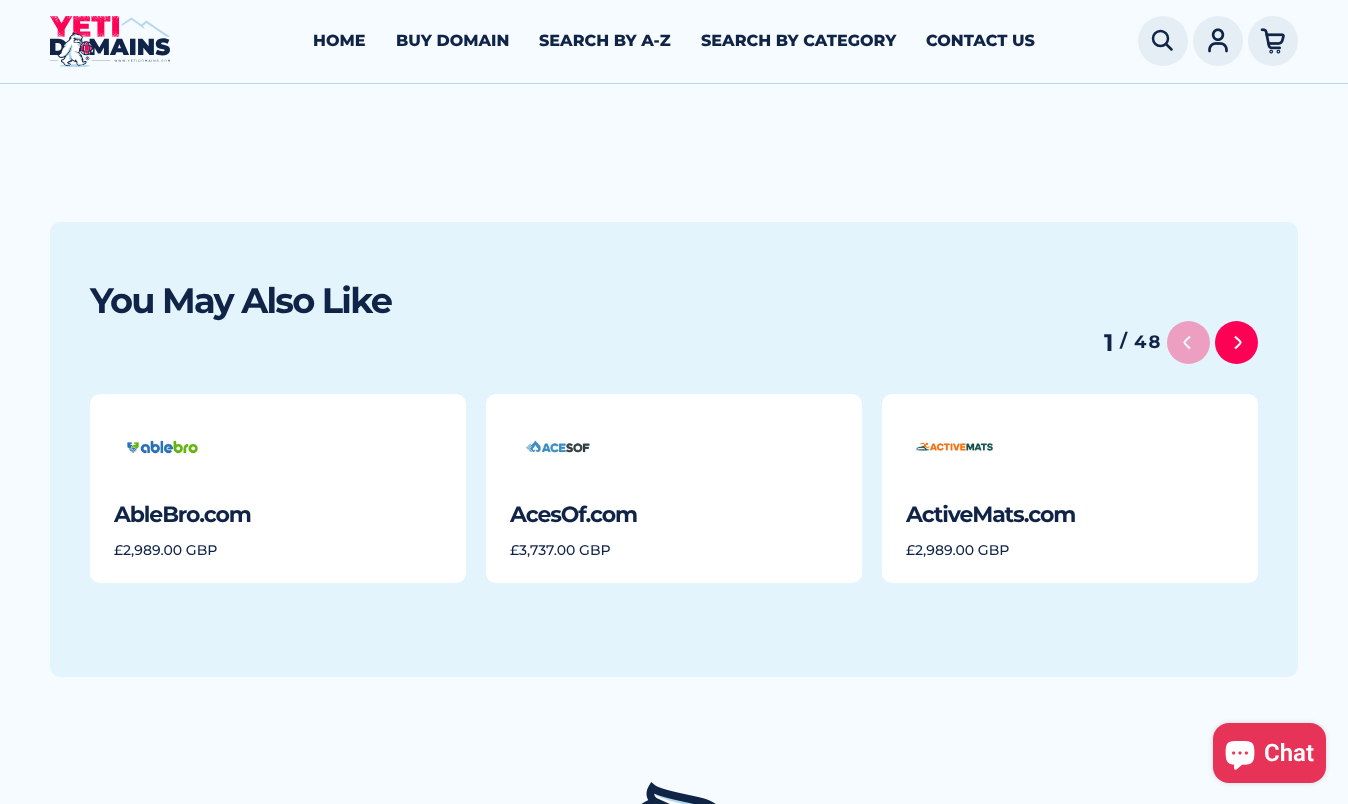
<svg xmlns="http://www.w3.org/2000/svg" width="1348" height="804">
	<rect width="100%" height="100%" fill="#F5FBFF" />
	<rect x="0" y="83" width="1348" height="1" fill="#B4D9EE" />
	<image x="50" y="16" width="120" height="51" href="assets/img1.png" />
	<g font-family="Montserrat" font-size="16" font-weight="800" fill="#102447">
		<text x="313" y="46">HOME</text>
		<text x="396" y="46">BUY DOMAIN</text>
		<text x="539" y="46">SEARCH BY A-Z</text>
		<text x="701" y="46">SEARCH BY CATEGORY</text>
		<text x="926" y="46">CONTACT US</text>
	</g>
	<circle cx="1163" cy="41" r="25" fill="#E4EEF4" />
	<circle cx="1160.5" cy="38.5" r="7.5" fill="none" stroke="#102447" stroke-width="2.5" />
	<path d="M1166 44L1171.5 49.5" fill="none" stroke="#102447" stroke-width="2.5" stroke-linecap="round" stroke-linejoin="round" />
	<circle cx="1218" cy="41" r="25" fill="#E4EEF4" />
	<image x="1208" y="28" width="20" height="25" href="assets/img2.png" />
	<circle cx="1273" cy="41" r="25" fill="#E4EEF4" />
	<image x="1260" y="28" width="25" height="26" href="assets/img3.png" />
	<rect x="50" y="222" width="1248" height="455" rx="10" fill="#E4F4FD" />
	<text x="90" y="313" font-family="Montserrat" font-size="35.25" font-weight="700" letter-spacing="-1.75" fill="#102447">You May Also Like</text>
	<text x="1104" y="351" font-family="Montserrat" font-size="24" font-weight="700" letter-spacing="2" fill="#102447">1</text>
	<g font-family="Montserrat" font-size="18" font-weight="700" letter-spacing="2" fill="#102447">
		<text x="1120" y="347">/</text>
		<text x="1134" y="348">48</text>
	</g>
	<circle cx="1188.5" cy="342.5" r="21.5" fill="#ED9FC2" />
	<path d="M1190 336.5C1182.5 344 1182.5 341 1190 348.5" fill="none" stroke="#EDF8FE" stroke-width="2.1" />
	<circle cx="1236.5" cy="342.5" r="21.5" fill="#FD0154" />
	<path d="M1235 336.5C1242.5 344 1242.5 341 1235 348.5" fill="none" stroke="#FFFFFF" stroke-width="2.1" />
	<rect x="90" y="394" width="376" height="189" rx="10" fill="#FFFFFF" />
	<image x="127" y="440" width="71" height="14" href="assets/img4.png" />
	<text x="114" y="522" font-family="Montserrat" font-size="22" font-weight="700" letter-spacing="-1.1" fill="#102447">AbleBro.com</text>
	<text x="114" y="555" font-family="Montserrat" font-size="14" font-weight="500" fill="#102447">£2,989.00 GBP</text>
	<rect x="486" y="394" width="376" height="189" rx="10" fill="#FFFFFF" />
	<image x="526" y="440" width="64" height="14" href="assets/img5.png" />
	<text x="510" y="522" font-family="Montserrat" font-size="22" font-weight="700" letter-spacing="-1.1" fill="#102447">AcesOf.com</text>
	<text x="510" y="555" font-family="Montserrat" font-size="14" font-weight="500" fill="#102447">£3,737.00 GBP</text>
	<rect x="882" y="394" width="376" height="189" rx="10" fill="#FFFFFF" />
	<image x="916" y="441" width="78" height="11" href="assets/img6.png" />
	<text x="906" y="522" font-family="Montserrat" font-size="22" font-weight="700" letter-spacing="-1.1" fill="#102447">ActiveMats.com</text>
	<text x="906" y="555" font-family="Montserrat" font-size="14" font-weight="500" fill="#102447">£2,989.00 GBP</text>
	<rect x="1213" y="723" width="113" height="60" rx="16" fill="#000000" fill-opacity="0.15" filter="blur(2.5px)" />
	<rect x="1213" y="723" width="113" height="60" rx="16" fill="#E83358" />
	<image x="1225" y="741" width="30" height="29" href="assets/img7.png" />
	<text x="1264" y="761" font-family="Roboto" font-size="24" font-weight="600" fill="#FFFFFF">Chat</text>
	<image x="641" y="782" width="75" height="22" href="assets/img8.png" />
</svg>
